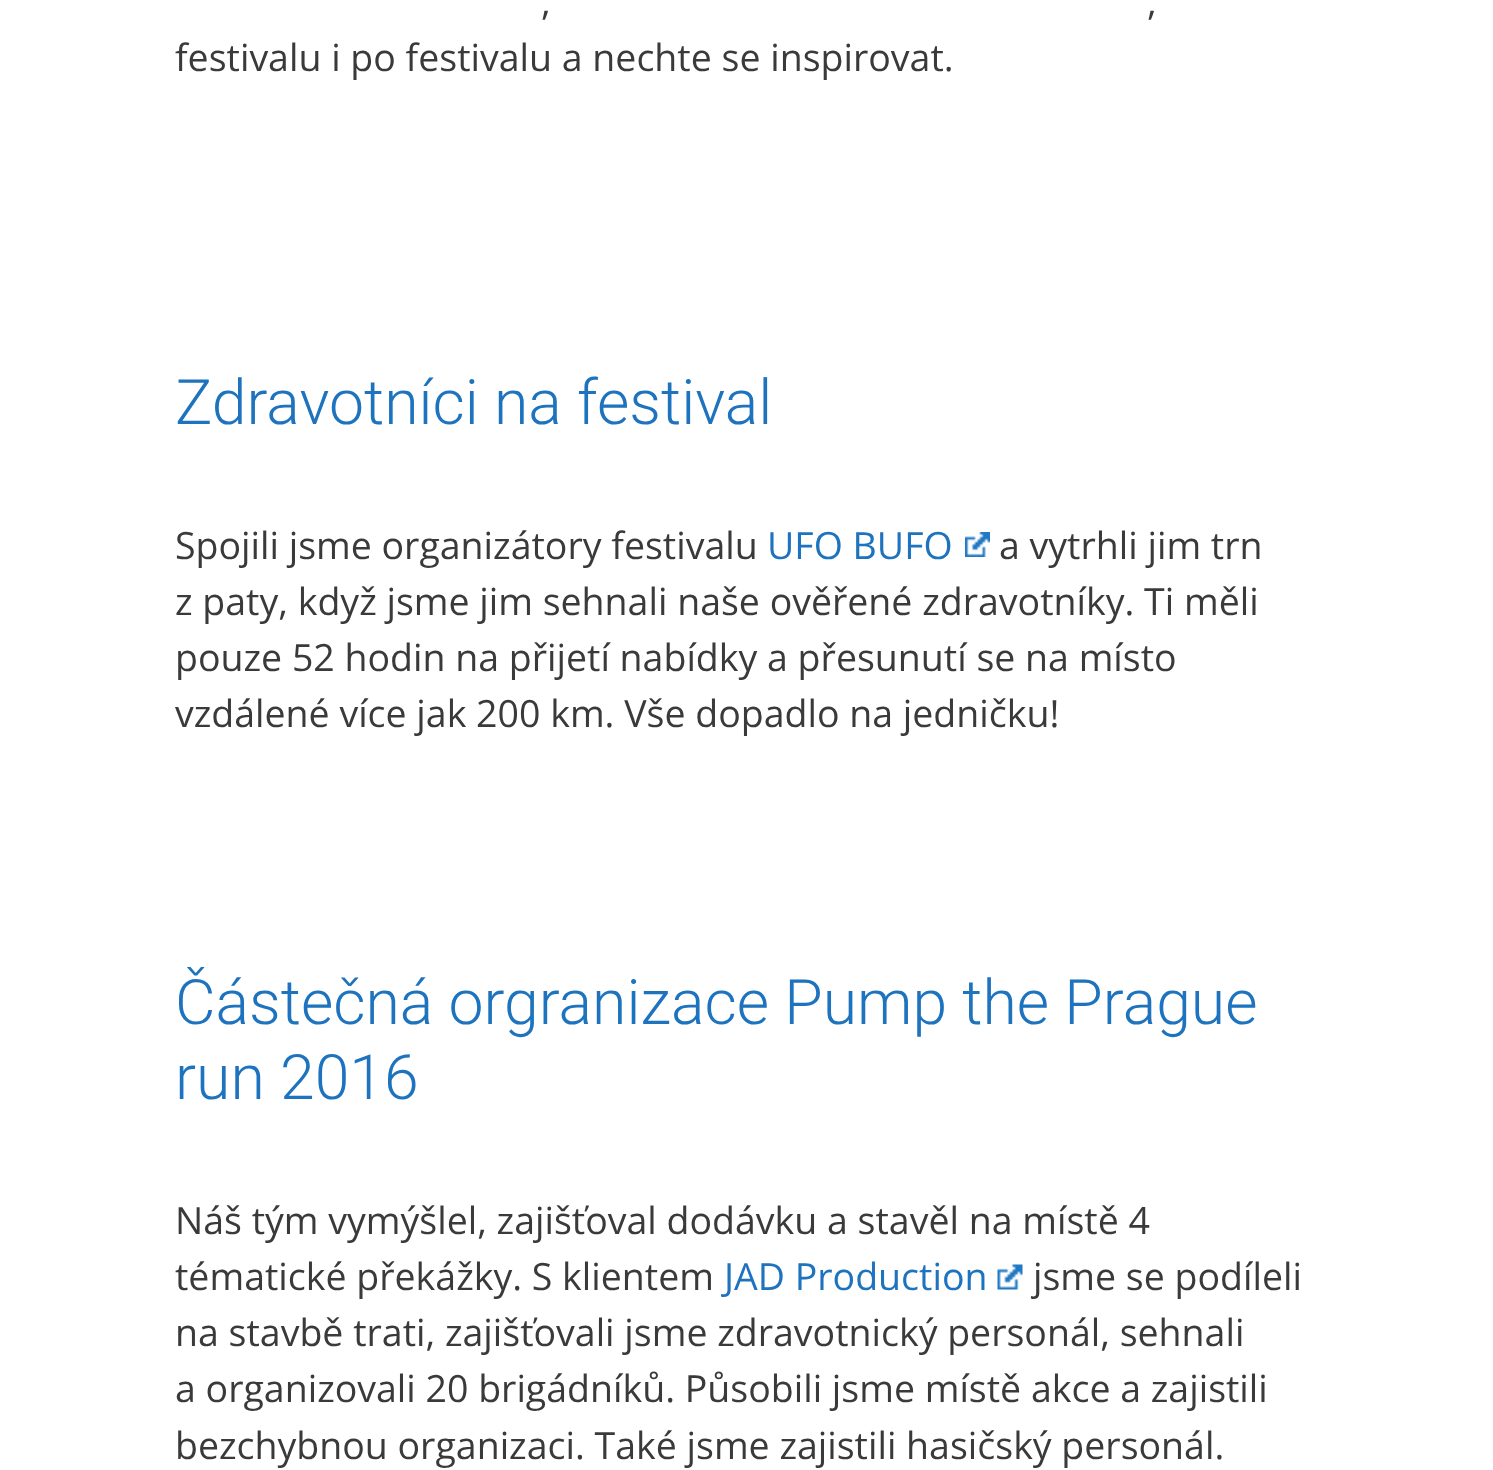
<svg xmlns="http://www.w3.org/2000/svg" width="1493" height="1470">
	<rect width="100%" height="100%" fill="#FFFFFF" />
	<g font-family="Open Sans" font-size="37.5" fill="#3A3A3A">
		<text x="541" y="15">,</text>
		<text x="1147" y="15">,</text>
		<text x="175" y="71">festivalu i po festivalu a nechte se inspirovat.</text>
	</g>
	<text x="175" y="424" font-family="Roboto" font-size="62.5" font-weight="300" fill="#1E73BE">Zdravotníci na festival</text>
	<text x="175" y="559" font-family="Open Sans" font-size="37.5" fill="#3A3A3A">Spojili jsme organizátory festivalu</text>
	<text x="767" y="559" font-family="Open Sans" font-size="37.5" fill="#1E73BE">UFO BUFO</text>
	<image x="965" y="532" width="25" height="25" href="assets/img1.png" />
	<g font-family="Open Sans" font-size="37.5" fill="#3A3A3A">
		<text x="999" y="559">a vytrhli jim trn</text>
		<text x="175" y="615">z paty, když jsme jim sehnali naše ověřené zdravotníky. Ti měli</text>
		<text x="175" y="671">pouze 52 hodin na přijetí nabídky a přesunutí se na místo</text>
		<text x="175" y="727">vzdálené více jak 200 km. Vše dopadlo na jedničku!</text>
	</g>
	<g font-family="Roboto" font-size="62.5" font-weight="300" fill="#1E73BE">
		<text x="175" y="1024">Částečná orgranizace Pump the Prague</text>
		<text x="175" y="1099">run 2016</text>
	</g>
	<g font-family="Open Sans" font-size="37.5" fill="#3A3A3A">
		<text x="175" y="1234">Náš tým vymýšlel, zajišťoval dodávku a stavěl na místě 4</text>
		<text x="175" y="1290">tématické překážky. S klientem</text>
	</g>
	<text x="724" y="1290" font-family="Open Sans" font-size="37.5" fill="#1E73BE">JAD Production</text>
	<image x="997" y="1264" width="26" height="26" href="assets/img2.png" />
	<g font-family="Open Sans" font-size="37.5" fill="#3A3A3A">
		<text x="1033" y="1290">jsme se podíleli</text>
		<text x="175" y="1346">na stavbě trati, zajišťovali jsme zdravotnický personál, sehnali</text>
		<text x="175" y="1402">a organizovali 20 brigádníků. Působili jsme místě akce a zajistili</text>
		<text x="175" y="1459">bezchybnou organizaci. Také jsme zajistili hasičský personál.</text>
	</g>
</svg>
